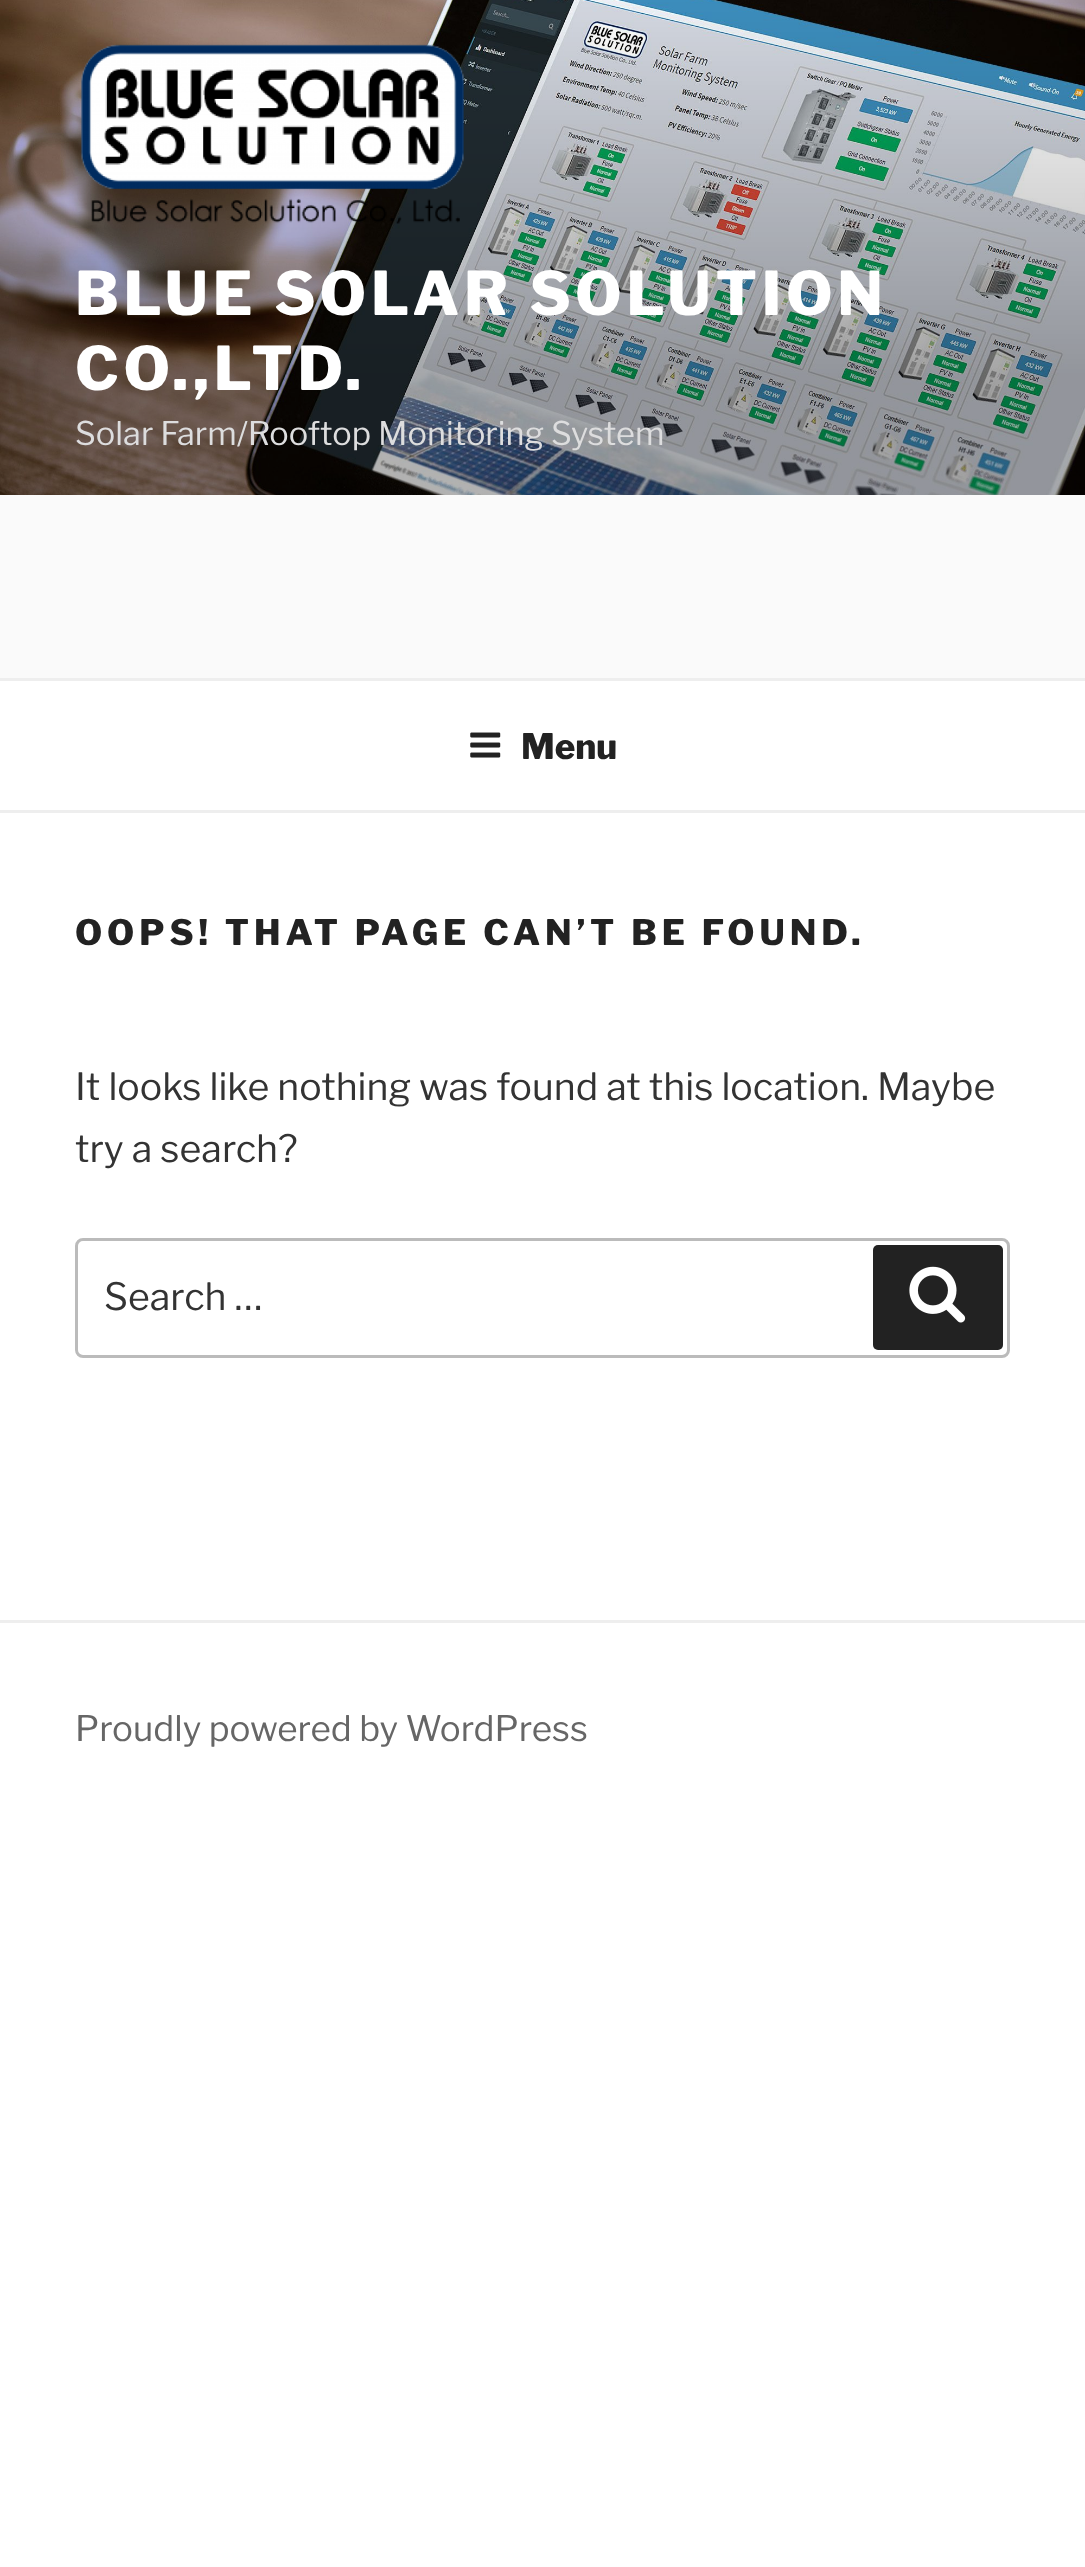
<svg xmlns="http://www.w3.org/2000/svg" width="1085" height="2567">
	<rect width="100%" height="100%" fill="#FFFFFF" />
	<rect x="0" y="495" width="1085" height="183" fill="#FAFAFA" />
	<image x="0" y="0" width="1085" height="495" href="assets/img1.png" />
	<image x="81" y="44" width="383" height="180" href="assets/img2.png" />
	<g font-family="Libre Franklin" font-size="60" font-weight="100" letter-spacing="4.75" fill="#FFFFFF">
		<text x="75" y="315">BLUE SOLAR SOLUTION</text>
		<text x="75" y="390">CO.,LTD.</text>
	</g>
	<text x="75" y="445" font-family="'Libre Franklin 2'" font-size="32.5" font-weight="100" fill="#DDDDDE">Solar Farm/Rooftop Monitoring System</text>
	<rect x="0" y="678" width="1085" height="3" fill="#EEEEEE" />
	<rect x="0" y="810" width="1085" height="3" fill="#EEEEEE" />
	<image x="470" y="732" width="31" height="26" href="assets/img3.png" />
	<text x="521" y="759" font-family="Libre Franklin" font-size="35" font-weight="100" fill="#222222">Menu</text>
	<text x="75" y="945" font-family="Libre Franklin" font-size="35" font-weight="100" letter-spacing="4.9" fill="#222222">OOPS! THAT PAGE CAN’T BE FOUND.</text>
	<g font-family="'Libre Franklin 2'" font-size="37.5" font-weight="100" fill="#333333">
		<text x="75" y="1100">It looks like nothing was found at this location. Maybe</text>
		<text x="75" y="1162">try a search?</text>
	</g>
	<rect x="76.5" y="1239.5" width="932" height="117" rx="6.5" fill="none" stroke="#BBBBBB" stroke-width="3" />
	<text x="104" y="1310" font-family="'Libre Franklin 2'" font-size="37.5" font-weight="100" fill="#333333">Search …</text>
	<rect x="873" y="1245" width="130" height="105" rx="5" fill="#222222" />
	<image x="909" y="1266" width="57" height="57" href="assets/img4.png" />
	<rect x="0" y="1620" width="1085" height="3" fill="#EEEEEE" />
	<text x="75" y="1741" font-family="'Libre Franklin 2'" font-size="35" font-weight="100" fill="#666666">Proudly powered by WordPress</text>
</svg>
